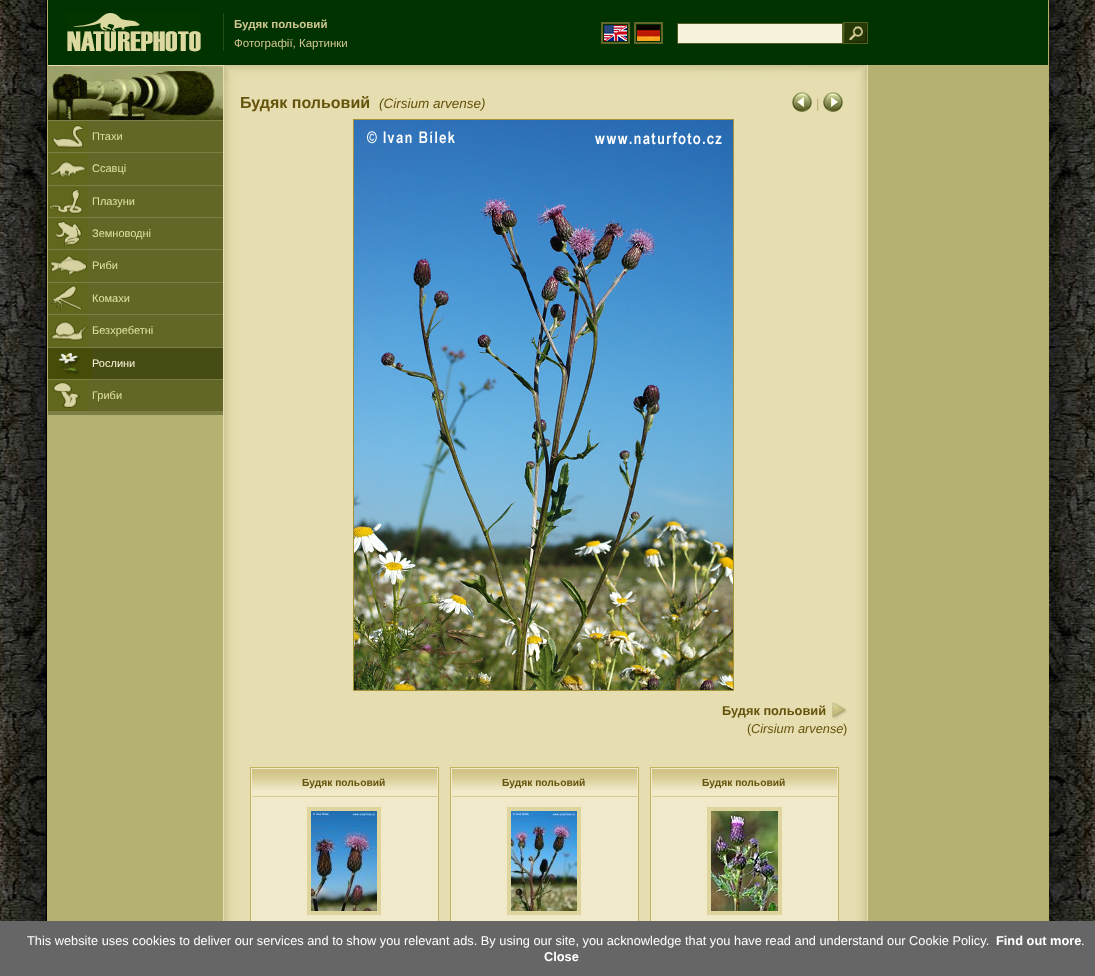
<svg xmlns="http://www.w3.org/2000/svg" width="1095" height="976">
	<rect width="100%" height="100%" fill="#FFFFFF" />
	<image x="0" y="0" width="1095" height="921" href="assets/img1.png" />
	<image x="48" y="415" width="175" height="506" href="assets/img2.png" />
	<rect x="1048" y="0" width="1" height="921" fill="#B5B06C" />
	<rect x="47" y="0" width="1" height="921" fill="#B5B06C" />
	<rect x="48" y="0" width="1000" height="65" fill="#013300" />
	<rect x="48" y="65" width="175" height="1" fill="#E6DEB0" />
	<image x="67" y="13" width="134" height="39" href="assets/img3.png" />
	<rect x="223" y="13" width="1" height="38" fill="#234C18" />
	<text x="234" y="28" font-family="Liberation Sans" font-size="11.5" font-weight="700" fill="#D0C691">Будяк польовий</text>
	<text x="234" y="47" font-family="Liberation Sans" font-size="11.5" fill="#D0C691">Фотографії, Картинки</text>
	<rect x="602" y="23" width="27" height="20" fill="none" stroke="#626727" stroke-width="2" />
	<rect x="635" y="23" width="27" height="20" fill="none" stroke="#626727" stroke-width="2" />
	<rect x="677.5" y="23.5" width="165" height="20" fill="#F7F2DC" stroke="#525B22" />
	<image x="843" y="22" width="25" height="22" href="assets/img4.png" />
	<image x="604" y="25" width="23" height="16" href="assets/img5.png" />
	<image x="637" y="25" width="23" height="16" href="assets/img6.png" />
	<image x="48" y="66" width="175" height="55" href="assets/img7.png" />
	<rect x="48" y="411" width="175" height="4" fill="#7B7F44" />
	<rect x="48" y="152" width="175" height="1" fill="#7B7F44" />
	<rect x="48" y="121" width="175" height="31" fill="#626727" />
	<image x="48" y="121" width="40" height="31" href="assets/img8.png" />
	<text x="92" y="140" font-family="Liberation Sans" font-size="11" fill="#E0E2A0">Птахи</text>
	<rect x="48" y="185" width="175" height="1" fill="#7B7F44" />
	<rect x="48" y="153" width="175" height="32" fill="#626727" />
	<image x="48" y="153" width="40" height="32" href="assets/img9.png" />
	<text x="92" y="172" font-family="Liberation Sans" font-size="11" fill="#E0E2A0">Ссавці</text>
	<rect x="48" y="217" width="175" height="1" fill="#7B7F44" />
	<rect x="48" y="186" width="175" height="31" fill="#626727" />
	<image x="48" y="186" width="40" height="31" href="assets/img10.png" />
	<text x="92" y="205" font-family="Liberation Sans" font-size="11" fill="#E0E2A0">Плазуни</text>
	<rect x="48" y="249" width="175" height="1" fill="#7B7F44" />
	<rect x="48" y="218" width="175" height="31" fill="#626727" />
	<image x="48" y="218" width="40" height="31" href="assets/img11.png" />
	<text x="92" y="237" font-family="Liberation Sans" font-size="11" fill="#E0E2A0">Земноводні</text>
	<rect x="48" y="282" width="175" height="1" fill="#7B7F44" />
	<rect x="48" y="250" width="175" height="32" fill="#626727" />
	<image x="48" y="250" width="40" height="32" href="assets/img12.png" />
	<text x="92" y="269" font-family="Liberation Sans" font-size="11" fill="#E0E2A0">Риби</text>
	<rect x="48" y="314" width="175" height="1" fill="#7B7F44" />
	<rect x="48" y="283" width="175" height="31" fill="#626727" />
	<image x="48" y="283" width="40" height="31" href="assets/img13.png" />
	<text x="92" y="302" font-family="Liberation Sans" font-size="11" fill="#E0E2A0">Комахи</text>
	<rect x="48" y="347" width="175" height="1" fill="#7B7F44" />
	<rect x="48" y="315" width="175" height="32" fill="#626727" />
	<image x="48" y="315" width="40" height="32" href="assets/img14.png" />
	<text x="92" y="334" font-family="Liberation Sans" font-size="11" fill="#E0E2A0">Безхребетні</text>
	<rect x="48" y="379" width="175" height="1" fill="#7B7F44" />
	<rect x="48" y="348" width="175" height="31" fill="#474C14" />
	<image x="48" y="348" width="44" height="31" href="assets/img15.png" />
	<text x="92" y="367" font-family="Liberation Sans" font-size="11" fill="#FEF9DF">Рослини</text>
	<rect x="48" y="380" width="175" height="31" fill="#626727" />
	<image x="48" y="380" width="40" height="31" href="assets/img16.png" />
	<text x="92" y="399" font-family="Liberation Sans" font-size="11" fill="#E0E2A0">Гриби</text>
	<rect x="223" y="65" width="1" height="856" fill="#E6DEB0" />
	<image x="224" y="65" width="824" height="856" href="assets/img17.png" />
	<image x="224" y="65" width="643" height="16" href="assets/img18.png" />
	<text x="240" y="108" font-family="Liberation Sans" font-size="16" font-weight="700" fill="#65530B">Будяк польовий</text>
	<text x="379" y="108" font-family="Liberation Sans" font-size="13.5" font-style="italic" fill="#65530B">(Cirsium arvense)</text>
	<image x="792" y="92" width="20" height="20" href="assets/img19.png" />
	<text x="816" y="108" font-family="Liberation Sans" font-size="12.8" fill="#BFB072">|</text>
	<image x="823" y="92" width="20" height="20" href="assets/img20.png" />
	<rect x="353.5" y="119.5" width="380" height="571" fill="none" stroke="#A49437" />
	<image x="354" y="120" width="379" height="570" href="assets/img21.png" />
	<text x="722" y="715" font-family="Liberation Sans" font-size="12.8" font-weight="700" fill="#65530B">Будяк польовий</text>
	<image x="832" y="702" width="15" height="17" href="assets/img22.png" />
	<text x="747" y="733" font-family="Liberation Sans" font-size="12.8" fill="#65530B">(</text>
	<text x="751" y="733" font-family="Liberation Sans" font-size="12.8" font-style="italic" fill="#65530B">Cirsium arvense</text>
	<text x="843" y="733" font-family="Liberation Sans" font-size="12.8" fill="#65530B">)</text>
	<rect x="251" y="768" width="187" height="153" fill="#F0EACA" />
	<rect x="250.5" y="767.5" width="188" height="192" fill="none" stroke="#C2B463" />
	<image x="252" y="769" width="185" height="21" href="assets/img23.png" />
	<rect x="252" y="796" width="185" height="1" fill="#D6CB8F" />
	<text x="302" y="786" font-family="Liberation Sans" font-size="10.25" font-weight="700" fill="#65530B">Будяк польовий</text>
	<rect x="309" y="809" width="70" height="104" fill="none" stroke="#DED49E" stroke-width="4" />
	<image x="311" y="811" width="66" height="100" href="assets/img24.png" />
	<rect x="451" y="768" width="187" height="153" fill="#F0EACA" />
	<rect x="450.5" y="767.5" width="188" height="192" fill="none" stroke="#C2B463" />
	<image x="452" y="769" width="185" height="21" href="assets/img23.png" />
	<rect x="452" y="796" width="185" height="1" fill="#D6CB8F" />
	<text x="502" y="786" font-family="Liberation Sans" font-size="10.25" font-weight="700" fill="#65530B">Будяк польовий</text>
	<rect x="509" y="809" width="70" height="104" fill="none" stroke="#DED49E" stroke-width="4" />
	<image x="511" y="811" width="66" height="100" href="assets/img25.png" />
	<rect x="651" y="768" width="187" height="153" fill="#F0EACA" />
	<rect x="650.5" y="767.5" width="188" height="192" fill="none" stroke="#C2B463" />
	<image x="652" y="769" width="185" height="21" href="assets/img23.png" />
	<rect x="652" y="796" width="185" height="1" fill="#D6CB8F" />
	<text x="702" y="786" font-family="Liberation Sans" font-size="10.25" font-weight="700" fill="#65530B">Будяк польовий</text>
	<rect x="709" y="809" width="71" height="104" fill="none" stroke="#DED49E" stroke-width="4" />
	<image x="711" y="811" width="67" height="100" href="assets/img26.png" />
	<rect x="0" y="921" width="1095" height="55" fill="#666666" />
	<text x="27" y="945" font-family="Liberation Sans" font-size="12.8" fill="#FFFFFF">This website uses cookies to deliver our services and to show you relevant ads. By using our site, you acknowledge that you have read and understand our Cookie Policy.</text>
	<text x="996" y="945" font-family="Liberation Sans" font-size="12.8" font-weight="700" fill="#FFFFFF">Find out more</text>
	<text x="1081" y="945" font-family="Liberation Sans" font-size="12.8" fill="#FFFFFF">.</text>
	<text x="544" y="961" font-family="Liberation Sans" font-size="12.8" font-weight="700" fill="#FFFFFF">Close</text>
</svg>
